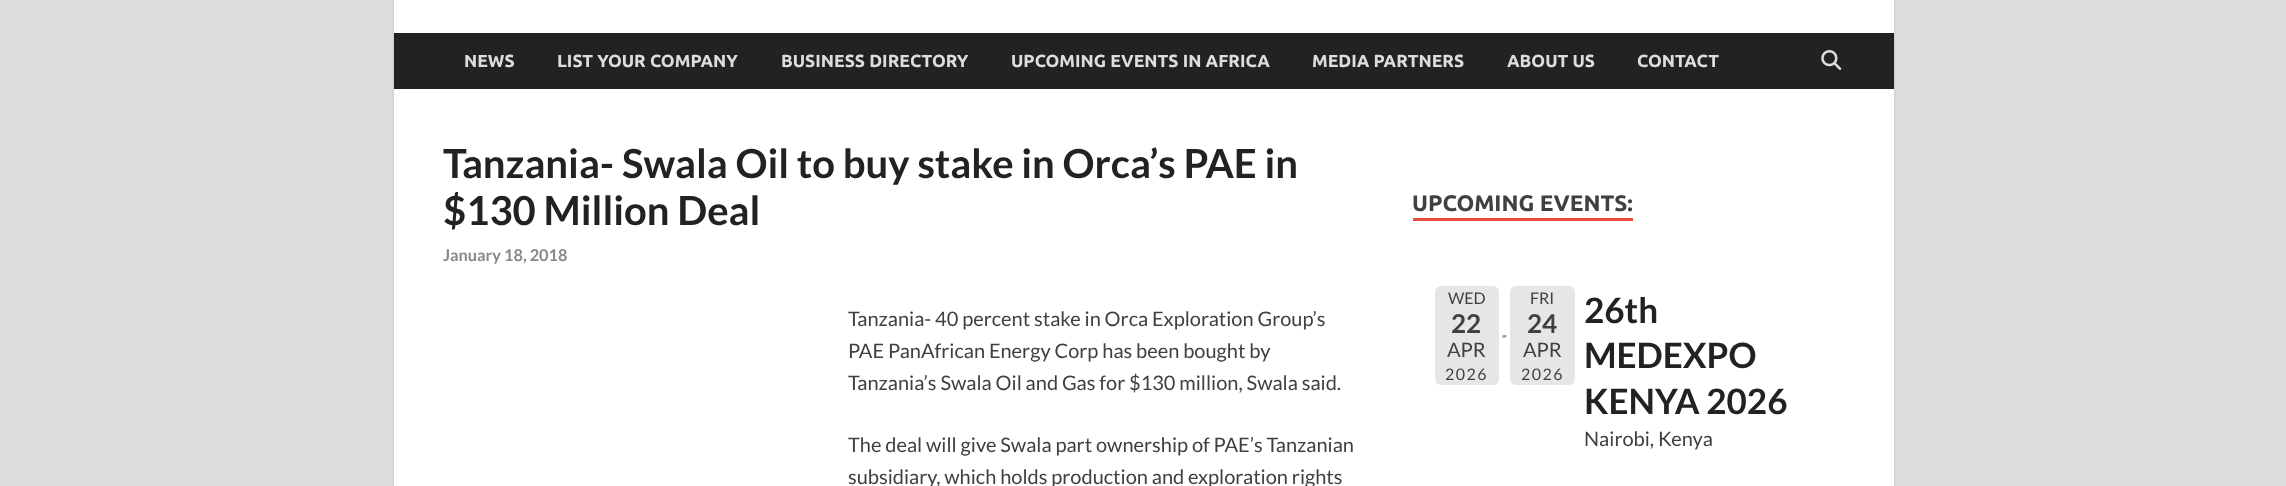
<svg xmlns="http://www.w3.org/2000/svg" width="2286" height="486">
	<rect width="100%" height="100%" fill="#DDDDDD" />
	<rect x="394" y="-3" width="1500" height="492" fill="#BBBBBB" filter="blur(1px)" />
	<rect x="394" y="0" width="1500" height="486" fill="#FFFFFF" />
	<rect x="394" y="33" width="1500" height="56" fill="#222222" />
	<g font-family="Ubuntu" font-size="17.5" font-weight="700" fill="#DDDDDD">
		<text x="464" y="67">NEWS</text>
		<text x="557" y="67">LIST YOUR COMPANY</text>
		<text x="781" y="67">BUSINESS DIRECTORY</text>
		<text x="1011" y="67">UPCOMING EVENTS IN AFRICA</text>
		<text x="1312" y="67">MEDIA PARTNERS</text>
		<text x="1507" y="67">ABOUT US</text>
		<text x="1637" y="67">CONTACT</text>
	</g>
	<image x="1821" y="50" width="21" height="20" href="assets/img1.png" />
	<g font-family="Lato" font-size="40" font-weight="700" fill="#222222">
		<text x="443" y="178">Tanzania- Swala Oil to buy stake in Orca’s PAE in</text>
		<text x="443" y="225">$130 Million Deal</text>
	</g>
	<text x="443" y="261" font-family="Lato" font-size="16.25" font-weight="700" fill="#888888">January 18, 2018</text>
	<g font-family="Lato" font-size="20" fill="#404040">
		<text x="848" y="326">Tanzania- 40 percent stake in Orca Exploration Group’s</text>
		<text x="848" y="358">PAE PanAfrican Energy Corp has been bought by</text>
		<text x="848" y="390">Tanzania’s Swala Oil and Gas for $130 million, Swala said.</text>
		<text x="848" y="452">The deal will give Swala part ownership of PAE’s Tanzanian</text>
		<text x="848" y="484">subsidiary, which holds production and exploration rights</text>
	</g>
	<rect x="1413" y="218" width="220" height="3" fill="#E74C3C" />
	<text x="1412" y="211" font-family="Ubuntu" font-size="22.5" font-weight="700" fill="#404040">UPCOMING EVENTS:</text>
	<image x="1502" y="334" width="5" height="4" href="assets/img2.png" />
	<rect x="1435" y="286" width="64" height="99" rx="6" fill="#E6E6E6" />
	<text x="1448" y="304" font-family="Lato" font-size="16" fill="#404040">WED</text>
	<text x="1451" y="333" font-family="Lato" font-size="26" font-weight="700" fill="#404040">22</text>
	<text x="1447" y="357" font-family="Lato" font-size="20" fill="#404040">APR</text>
	<text x="1445" y="380" font-family="Lato" font-size="16" letter-spacing="1.5" fill="#404040">2026</text>
	<rect x="1510" y="286" width="65" height="99" rx="6" fill="#E6E6E6" />
	<text x="1530" y="304" font-family="Lato" font-size="16" fill="#404040">FRI</text>
	<text x="1527" y="333" font-family="Lato" font-size="26" font-weight="700" fill="#404040">24</text>
	<text x="1523" y="357" font-family="Lato" font-size="20" fill="#404040">APR</text>
	<text x="1521" y="380" font-family="Lato" font-size="16" letter-spacing="1.5" fill="#404040">2026</text>
	<g font-family="Lato" font-size="35" font-weight="700" fill="#222222">
		<text x="1584" y="323">26th</text>
		<text x="1584" y="368">MEDEXPO</text>
		<text x="1584" y="414">KENYA 2026</text>
	</g>
	<text x="1584" y="446" font-family="Lato" font-size="20" fill="#404040">Nairobi, Kenya</text>
</svg>
